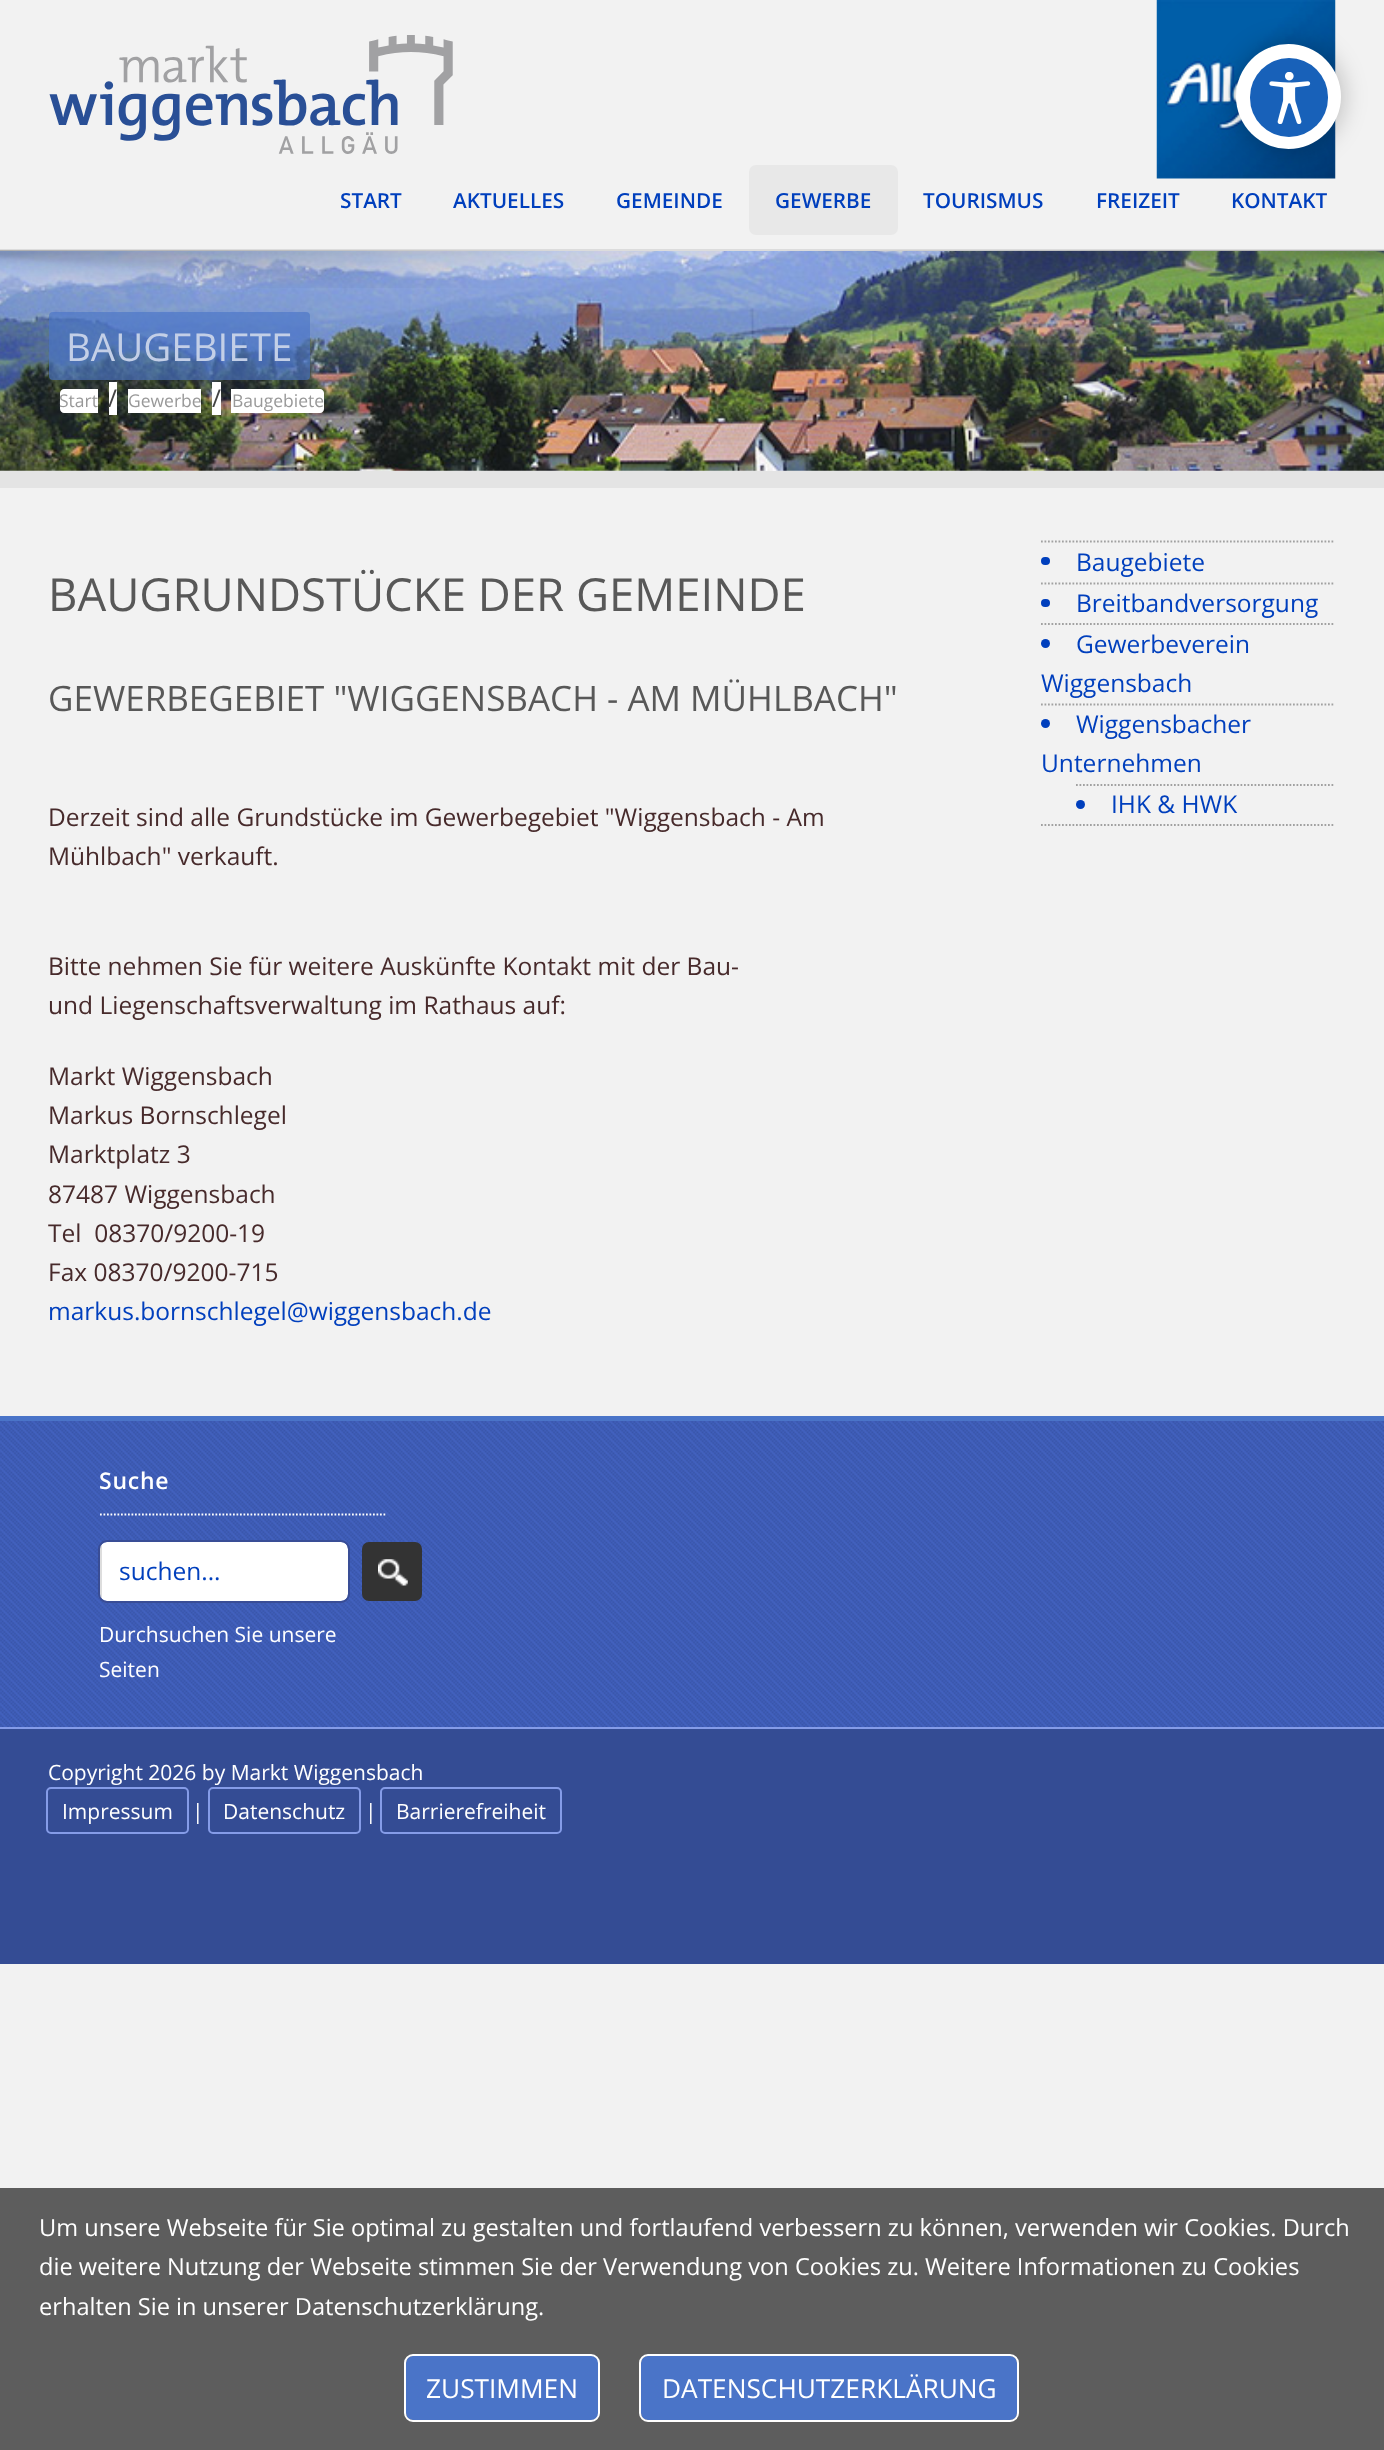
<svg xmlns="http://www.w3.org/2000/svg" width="1384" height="2450">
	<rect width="100%" height="100%" fill="#F2F2F2" />
	<image x="1156" y="0" width="180" height="179" href="assets/img3.png" />
	<rect x="1236" y="44" width="105" height="105" rx="52.5" fill="#000000" fill-opacity="0.26" filter="blur(13px)" />
	<circle cx="1288.5" cy="96.5" r="52.5" fill="#FFFFFF" />
	<rect x="1250" y="58" width="78" height="79" rx="39" fill="#1861B9" />
	<image x="1269" y="72" width="42" height="52" href="assets/img1.png" />
	<image x="49" y="35" width="404" height="119" href="assets/img2.png" />
	<g font-family="Open Sans" font-size="20.75" font-weight="600" fill="#003FBD">
		<text x="340" y="208">START</text>
		<text x="453" y="208">AKTUELLES</text>
		<text x="616" y="208">GEMEINDE</text>
	</g>
	<rect x="749" y="165" width="149" height="70" rx="7" fill="#E8E8E8" />
	<g font-family="Open Sans" font-size="20.75" font-weight="600" fill="#003FBD">
		<text x="775" y="208">GEWERBE</text>
		<text x="923" y="208">TOURISMUS</text>
		<text x="1096" y="208">FREIZEIT</text>
		<text x="1231" y="208">KONTAKT</text>
	</g>
	<image x="0" y="251" width="1384" height="220" href="assets/img4.png" />
	<rect x="0" y="249" width="1384" height="2" fill="#DCDCDC" />
	<image x="0" y="250" width="1384" height="38" href="assets/img5.png" />
	<rect x="49" y="312" width="261" height="68" rx="4" fill="#4A74C8" fill-opacity="0.65" />
	<text x="66" y="361" font-family="Open Sans" font-size="38.5" fill="#C3CFE7">BAUGEBIETE</text>
	<path d="M64 389H98V413H64C62 413 60 411 60 409V393C60 391 62 389 64 389Z" fill="#FFFFFF" />
	<text x="59" y="407" font-family="Open Sans" font-size="17.5" fill="#999999">Start</text>
	<rect x="109" y="382" width="8" height="33" fill="#FFFFFF" />
	<text x="108" y="407" font-family="Open Sans" font-size="24.5" fill="#444444">/</text>
	<rect x="128" y="389" width="73" height="24" fill="#FFFFFF" />
	<text x="128" y="407" font-family="Open Sans" font-size="17.5" fill="#999999">Gewerbe</text>
	<rect x="212" y="382" width="9" height="33" fill="#FFFFFF" />
	<text x="212" y="407" font-family="Open Sans" font-size="24.5" fill="#444444">/</text>
	<path d="M231 389H320C322 389 324 391 324 393V409C324 411 322 413 320 413H231Z" fill="#FFFFFF" />
	<text x="232" y="407" font-family="Open Sans" font-size="17.5" fill="#999999">Baugebiete</text>
	<rect x="0" y="471" width="1384" height="17" fill="#E4E4E4" />
	<text x="48" y="611" font-family="Open Sans" font-size="45.5" fill="#585858">BAUGRUNDSTÜCKE DER GEMEINDE</text>
	<text x="48" y="711" font-family="Open Sans" font-size="35" fill="#585858">GEWERBEGEBIET "WIGGENSBACH - AM MÜHLBACH"</text>
	<g font-family="Open Sans" font-size="24.5" fill="#472A2B">
		<text x="48" y="826">Derzeit sind alle Grundstücke im Gewerbegebiet "Wiggensbach - Am</text>
		<text x="48" y="865">Mühlbach" verkauft.</text>
		<text x="48" y="975">Bitte nehmen Sie für weitere Auskünfte Kontakt mit der Bau-</text>
		<text x="48" y="1014">und Liegenschaftsverwaltung im Rathaus auf:</text>
		<text x="48" y="1085">Markt Wiggensbach</text>
		<text x="48" y="1124">Markus Bornschlegel</text>
		<text x="48" y="1163">Marktplatz 3</text>
		<text x="48" y="1203">87487 Wiggensbach</text>
		<text x="48" y="1242" xml:space="preserve">Tel  08370/9200-19</text>
		<text x="48" y="1281">Fax 08370/9200-715</text>
	</g>
	<text x="48" y="1320" font-family="Open Sans" font-size="24.5" fill="#003FBD">markus.bornschlegel@wiggensbach.de</text>
	<path d="M1041 825H1335" fill="none" stroke="#A1A1A1" stroke-width="1.8" stroke-dasharray="1.75 1.75" />
	<path d="M1041 541.5H1335" fill="none" stroke="#A1A1A1" stroke-width="1.8" stroke-dasharray="1.75 1.75" />
	<rect x="1041" y="557" width="9" height="8" rx="4" fill="#003FBD" />
	<text x="1076" y="571" font-family="Open Sans" font-size="24.5" fill="#003FBD">Baugebiete</text>
	<path d="M1041 583.5H1335" fill="none" stroke="#A1A1A1" stroke-width="1.8" stroke-dasharray="1.75 1.75" />
	<rect x="1041" y="599" width="9" height="8" rx="4" fill="#003FBD" />
	<text x="1076" y="612" font-family="Open Sans" font-size="24.5" fill="#003FBD">Breitbandversorgung</text>
	<path d="M1041 624H1335" fill="none" stroke="#A1A1A1" stroke-width="1.8" stroke-dasharray="1.75 1.75" />
	<circle cx="1045.5" cy="643.5" r="4.5" fill="#003FBD" />
	<g font-family="Open Sans" font-size="24.5" fill="#003FBD">
		<text x="1076" y="653">Gewerbeverein</text>
		<text x="1041" y="692">Wiggensbach</text>
	</g>
	<path d="M1041 704.5H1335" fill="none" stroke="#A1A1A1" stroke-width="1.8" stroke-dasharray="1.75 1.75" />
	<circle cx="1045.5" cy="723.5" r="4.5" fill="#003FBD" />
	<g font-family="Open Sans" font-size="24.5" fill="#003FBD">
		<text x="1076" y="733">Wiggensbacher</text>
		<text x="1041" y="772">Unternehmen</text>
	</g>
	<path d="M1076 785H1335" fill="none" stroke="#A1A1A1" stroke-width="1.8" stroke-dasharray="1.75 1.75" />
	<circle cx="1080.5" cy="804.5" r="4.5" fill="#003FBD" />
	<text x="1111" y="813" font-family="Open Sans" font-size="24.5" fill="#003FBD">IHK &amp; HWK</text>
	<rect x="0" y="1416" width="1384" height="5" fill="#4A74C8" />
	<rect x="0" y="1421" width="1384" height="306" fill="#4362BF" />
	<image x="0" y="1421" width="1384" height="306" href="assets/img6.png" />
	<path d="M100 1514.5H387" fill="none" stroke="#FFFFFF" stroke-width="1.8" stroke-dasharray="1.75 1.75" />
	<text x="99" y="1489" font-family="Open Sans" font-size="23" font-weight="600" letter-spacing="0.75" fill="#FFFFFF">Suche</text>
	<rect x="100" y="1542" width="248" height="59" rx="7" fill="#FFFFFF" />
	<rect x="100" y="1545" width="2" height="53" fill="#DDDDDD" />
	<rect x="99" y="1541" width="250" height="61" rx="8" fill="none" stroke="#394D96" stroke-width="2" />
	<text x="119" y="1580" font-family="Open Sans" font-size="24.5" fill="#003FBD">suchen...</text>
	<rect x="362" y="1542" width="60" height="59" rx="7" fill="#333333" />
	<image x="378" y="1559" width="30" height="27" href="assets/img7.png" />
	<g font-family="Open Sans" font-size="21" fill="#FFFFFF">
		<text x="99" y="1642">Durchsuchen Sie unsere</text>
		<text x="99" y="1677">Seiten</text>
	</g>
	<rect x="0" y="1729" width="1384" height="235" fill="#344C94" />
	<rect x="0" y="1727" width="1384" height="2" fill="#859CE8" />
	<g font-family="Open Sans" font-size="21" fill="#FFFFFF">
		<text x="48" y="1780">Copyright 2026 by Markt Wiggensbach</text>
		<text x="62" y="1819">Impressum</text>
	</g>
	<rect x="47" y="1788" width="141" height="45" rx="4" fill="none" stroke="#859CE8" stroke-width="2" />
	<g font-family="Open Sans" font-size="21" fill="#FFFFFF">
		<text x="192" y="1819">|</text>
		<text x="223" y="1819">Datenschutz</text>
	</g>
	<rect x="209" y="1788" width="151" height="45" rx="4" fill="none" stroke="#859CE8" stroke-width="2" />
	<g font-family="Open Sans" font-size="21" fill="#FFFFFF">
		<text x="365" y="1819">|</text>
		<text x="396" y="1819">Barrierefreiheit</text>
	</g>
	<rect x="381" y="1788" width="180" height="45" rx="4" fill="none" stroke="#859CE8" stroke-width="2" />
	<rect x="0" y="2188" width="1384" height="262" fill="#5D5D5D" />
	<g font-family="Open Sans" font-size="23.62" fill="#FFFFFF">
		<text x="39" y="2236">Um unsere Webseite für Sie optimal zu gestalten und fortlaufend verbessern zu können, verwenden wir Cookies. Durch</text>
		<text x="39" y="2275">die weitere Nutzung der Webseite stimmen Sie der Verwendung von Cookies zu. Weitere Informationen zu Cookies</text>
		<text x="39" y="2315">erhalten Sie in unserer Datenschutzerklärung.</text>
	</g>
	<rect x="406" y="2356" width="193" height="64" rx="7" fill="#4A74C8" />
	<rect x="405" y="2355" width="194" height="66" rx="8" fill="none" stroke="#FFFFFF" stroke-width="2" />
	<text x="426" y="2398" font-family="Open Sans" font-size="26.25" fill="#FFFFFF">ZUSTIMMEN</text>
	<rect x="641" y="2356" width="376" height="64" rx="7" fill="#4A74C8" />
	<rect x="640" y="2355" width="378" height="66" rx="8" fill="none" stroke="#FFFFFF" stroke-width="2" />
	<text x="662" y="2398" font-family="Open Sans" font-size="26.25" fill="#FFFFFF">DATENSCHUTZERKLÄRUNG</text>
</svg>
